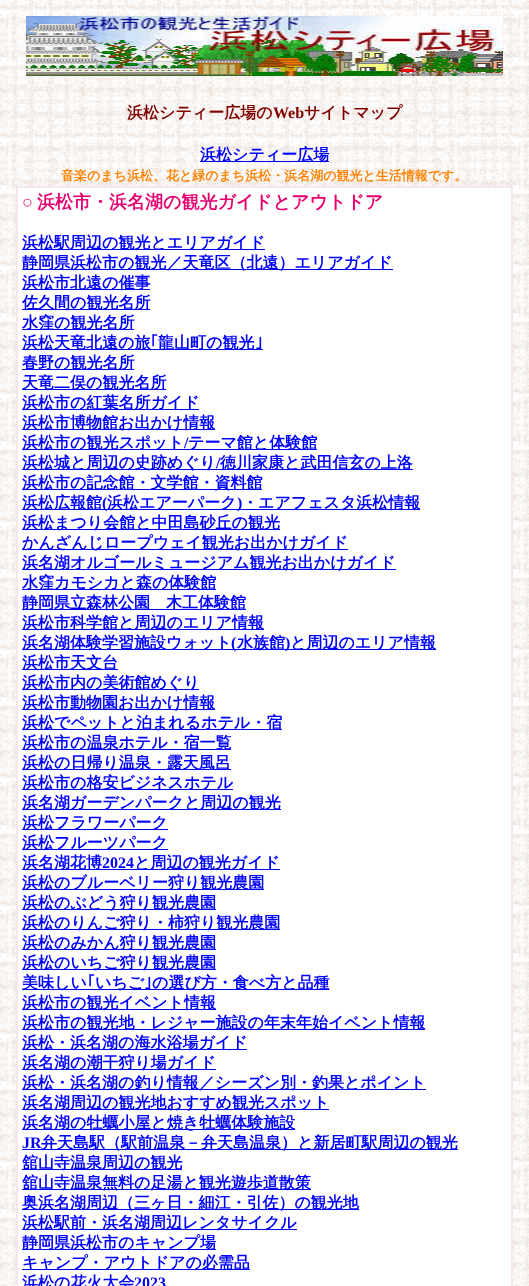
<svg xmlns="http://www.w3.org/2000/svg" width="529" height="1286">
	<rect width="100%" height="100%" fill="#FFFFFF" />
	<image x="0" y="0" width="529" height="1286" href="assets/img1.png" />
	<image x="26" y="16" width="477" height="60" href="assets/img2.png" />
	<text x="127" y="118" font-family="WenQuanYi Zen Hei" font-size="16" font-weight="700" fill="#800000">浜松シティー広場の</text>
	<text x="273" y="118" font-family="Liberation Serif" font-size="16" font-weight="700" fill="#800000">Web</text>
	<text x="304" y="118" font-family="WenQuanYi Zen Hei" font-size="16" font-weight="700" fill="#800000">サイトマップ</text>
	<rect x="200" y="161" width="129" height="1" fill="#0000EE" />
	<text x="200" y="160" font-family="WenQuanYi Zen Hei" font-size="16" font-weight="700" fill="#0000FF">浜松シティー広場</text>
	<text x="61" y="180" font-family="WenQuanYi Zen Hei" font-size="13" font-weight="700" fill="#FF8000">音楽のまち浜松、花と緑のまち浜松・浜名湖の観光と生活情報です。</text>
	<rect x="16" y="186" width="497" height="1100" fill="#F7E6ED" />
	<rect x="18" y="188" width="493" height="1098" fill="#FFFFFF" />
	<text x="22" y="208" font-family="Liberation Serif" font-size="18" font-weight="700" fill="#E7016F">○</text>
	<text x="37" y="208" font-family="WenQuanYi Zen Hei" font-size="18" font-weight="700" fill="#E7016F">浜松市・浜名湖の観光ガイドとアウトドア</text>
	<rect x="22" y="249" width="243" height="1" fill="#0000EE" />
	<text x="22" y="248" font-family="WenQuanYi Zen Hei" font-size="16" font-weight="700" fill="#0000FF">浜松駅周辺の観光とエリアガイド</text>
	<rect x="22" y="269" width="371" height="1" fill="#0000EE" />
	<text x="22" y="268" font-family="WenQuanYi Zen Hei" font-size="16" font-weight="700" fill="#0000FF">静岡県浜松市の観光／天竜区（北遠）エリアガイド</text>
	<rect x="22" y="289" width="128" height="1" fill="#0000EE" />
	<text x="22" y="288" font-family="WenQuanYi Zen Hei" font-size="16" font-weight="700" fill="#0000FF">浜松市北遠の催事</text>
	<rect x="22" y="309" width="128" height="1" fill="#0000EE" />
	<text x="22" y="308" font-family="WenQuanYi Zen Hei" font-size="16" font-weight="700" fill="#0000FF">佐久間の観光名所</text>
	<rect x="22" y="329" width="112" height="1" fill="#0000EE" />
	<text x="22" y="328" font-family="WenQuanYi Zen Hei" font-size="16" font-weight="700" fill="#0000FF">水窪の観光名所</text>
	<rect x="22" y="349" width="241" height="1" fill="#0000EE" />
	<text x="22" y="348" font-family="WenQuanYi Zen Hei" font-size="16" font-weight="700" fill="#0000FF">浜松天竜北遠の旅</text>
	<text x="150" y="348" font-family="IPAPGothic" font-size="16" font-weight="700" fill="#0000FF">｢</text>
	<text x="158" y="348" font-family="WenQuanYi Zen Hei" font-size="16" font-weight="700" fill="#0000FF">龍山町の観光</text>
	<text x="255" y="348" font-family="IPAPGothic" font-size="16" font-weight="700" fill="#0000FF">｣</text>
	<rect x="22" y="369" width="112" height="1" fill="#0000EE" />
	<text x="22" y="368" font-family="WenQuanYi Zen Hei" font-size="16" font-weight="700" fill="#0000FF">春野の観光名所</text>
	<rect x="22" y="389" width="144" height="1" fill="#0000EE" />
	<text x="22" y="388" font-family="WenQuanYi Zen Hei" font-size="16" font-weight="700" fill="#0000FF">天竜二俣の観光名所</text>
	<rect x="22" y="409" width="177" height="1" fill="#0000EE" />
	<text x="22" y="408" font-family="WenQuanYi Zen Hei" font-size="16" font-weight="700" fill="#0000FF">浜松市の紅葉名所ガイド</text>
	<rect x="22" y="429" width="193" height="1" fill="#0000EE" />
	<text x="22" y="428" font-family="WenQuanYi Zen Hei" font-size="16" font-weight="700" fill="#0000FF">浜松市博物館お出かけ情報</text>
	<rect x="22" y="449" width="295" height="1" fill="#0000EE" />
	<text x="22" y="448" font-family="WenQuanYi Zen Hei" font-size="16" font-weight="700" fill="#0000FF">浜松市の観光スポット</text>
	<text x="184" y="448" font-family="Liberation Serif" font-size="16" font-weight="700" fill="#0000FF">/</text>
	<text x="188" y="448" font-family="WenQuanYi Zen Hei" font-size="16" font-weight="700" fill="#0000FF">テーマ館と体験館</text>
	<rect x="22" y="469" width="391" height="1" fill="#0000EE" />
	<text x="22" y="468" font-family="WenQuanYi Zen Hei" font-size="16" font-weight="700" fill="#0000FF">浜松城と周辺の史跡めぐり</text>
	<text x="216" y="468" font-family="Liberation Serif" font-size="16" font-weight="700" fill="#0000FF">/</text>
	<text x="220" y="468" font-family="WenQuanYi Zen Hei" font-size="16" font-weight="700" fill="#0000FF">徳川家康と武田信玄の上洛</text>
	<rect x="22" y="489" width="240" height="1" fill="#0000EE" />
	<text x="22" y="488" font-family="WenQuanYi Zen Hei" font-size="16" font-weight="700" fill="#0000FF">浜松市の記念館・文学館・資料館</text>
	<rect x="22" y="509" width="398" height="1" fill="#0000EE" />
	<text x="22" y="508" font-family="WenQuanYi Zen Hei" font-size="16" font-weight="700" fill="#0000FF">浜松広報館</text>
	<text x="102" y="508" font-family="Liberation Serif" font-size="16" font-weight="700" fill="#0000FF">(</text>
	<text x="107" y="508" font-family="WenQuanYi Zen Hei" font-size="16" font-weight="700" fill="#0000FF">浜松エアーパーク</text>
	<text x="237" y="508" font-family="Liberation Serif" font-size="16" font-weight="700" fill="#0000FF">)</text>
	<text x="242" y="508" font-family="WenQuanYi Zen Hei" font-size="16" font-weight="700" fill="#0000FF">・エアフェスタ浜松情報</text>
	<rect x="22" y="529" width="258" height="1" fill="#0000EE" />
	<text x="22" y="528" font-family="WenQuanYi Zen Hei" font-size="16" font-weight="700" fill="#0000FF">浜松まつり会館と中田島砂丘の観光</text>
	<rect x="22" y="549" width="326" height="1" fill="#0000EE" />
	<text x="22" y="548" font-family="WenQuanYi Zen Hei" font-size="16" font-weight="700" fill="#0000FF">かんざんじロープウェイ観光お出かけガイド</text>
	<rect x="22" y="569" width="374" height="1" fill="#0000EE" />
	<text x="22" y="568" font-family="WenQuanYi Zen Hei" font-size="16" font-weight="700" fill="#0000FF">浜名湖オルゴールミュージアム観光お出かけガイド</text>
	<rect x="22" y="589" width="194" height="1" fill="#0000EE" />
	<text x="22" y="588" font-family="WenQuanYi Zen Hei" font-size="16" font-weight="700" fill="#0000FF">水窪カモシカと森の体験館</text>
	<rect x="22" y="609" width="224" height="1" fill="#0000EE" />
	<text x="22" y="608" font-family="WenQuanYi Zen Hei" font-size="16" font-weight="700" fill="#0000FF">静岡県立森林公園　木工体験館</text>
	<rect x="22" y="629" width="242" height="1" fill="#0000EE" />
	<text x="22" y="628" font-family="WenQuanYi Zen Hei" font-size="16" font-weight="700" fill="#0000FF">浜松市科学館と周辺のエリア情報</text>
	<rect x="22" y="649" width="414" height="1" fill="#0000EE" />
	<text x="22" y="648" font-family="WenQuanYi Zen Hei" font-size="16" font-weight="700" fill="#0000FF">浜名湖体験学習施設ウォット</text>
	<text x="231" y="648" font-family="Liberation Serif" font-size="16" font-weight="700" fill="#0000FF">(</text>
	<text x="237" y="648" font-family="WenQuanYi Zen Hei" font-size="16" font-weight="700" fill="#0000FF">水族館</text>
	<text x="285" y="648" font-family="Liberation Serif" font-size="16" font-weight="700" fill="#0000FF">)</text>
	<text x="290" y="648" font-family="WenQuanYi Zen Hei" font-size="16" font-weight="700" fill="#0000FF">と周辺のエリア情報</text>
	<rect x="22" y="669" width="96" height="1" fill="#0000EE" />
	<text x="22" y="668" font-family="WenQuanYi Zen Hei" font-size="16" font-weight="700" fill="#0000FF">浜松市天文台</text>
	<rect x="22" y="689" width="177" height="1" fill="#0000EE" />
	<text x="22" y="688" font-family="WenQuanYi Zen Hei" font-size="16" font-weight="700" fill="#0000FF">浜松市内の美術館めぐり</text>
	<rect x="22" y="709" width="193" height="1" fill="#0000EE" />
	<text x="22" y="708" font-family="WenQuanYi Zen Hei" font-size="16" font-weight="700" fill="#0000FF">浜松市動物園お出かけ情報</text>
	<rect x="22" y="729" width="260" height="1" fill="#0000EE" />
	<text x="22" y="728" font-family="WenQuanYi Zen Hei" font-size="16" font-weight="700" fill="#0000FF">浜松でペットと泊まれるホテル・宿</text>
	<rect x="22" y="749" width="209" height="1" fill="#0000EE" />
	<text x="22" y="748" font-family="WenQuanYi Zen Hei" font-size="16" font-weight="700" fill="#0000FF">浜松市の温泉ホテル・宿一覧</text>
	<rect x="22" y="769" width="209" height="1" fill="#0000EE" />
	<text x="22" y="768" font-family="WenQuanYi Zen Hei" font-size="16" font-weight="700" fill="#0000FF">浜松の日帰り温泉・露天風呂</text>
	<rect x="22" y="789" width="211" height="1" fill="#0000EE" />
	<text x="22" y="788" font-family="WenQuanYi Zen Hei" font-size="16" font-weight="700" fill="#0000FF">浜松市の格安ビジネスホテル</text>
	<rect x="22" y="809" width="259" height="1" fill="#0000EE" />
	<text x="22" y="808" font-family="WenQuanYi Zen Hei" font-size="16" font-weight="700" fill="#0000FF">浜名湖ガーデンパークと周辺の観光</text>
	<rect x="22" y="829" width="146" height="1" fill="#0000EE" />
	<text x="22" y="828" font-family="WenQuanYi Zen Hei" font-size="16" font-weight="700" fill="#0000FF">浜松フラワーパーク</text>
	<rect x="22" y="849" width="146" height="1" fill="#0000EE" />
	<text x="22" y="848" font-family="WenQuanYi Zen Hei" font-size="16" font-weight="700" fill="#0000FF">浜松フルーツパーク</text>
	<rect x="22" y="869" width="258" height="1" fill="#0000EE" />
	<text x="22" y="868" font-family="WenQuanYi Zen Hei" font-size="16" font-weight="700" fill="#0000FF">浜名湖花博</text>
	<text x="102" y="868" font-family="Liberation Serif" font-size="16" font-weight="700" fill="#0000FF">2024</text>
	<text x="134" y="868" font-family="WenQuanYi Zen Hei" font-size="16" font-weight="700" fill="#0000FF">と周辺の観光ガイド</text>
	<rect x="22" y="889" width="242" height="1" fill="#0000EE" />
	<text x="22" y="888" font-family="WenQuanYi Zen Hei" font-size="16" font-weight="700" fill="#0000FF">浜松のブルーベリー狩り観光農園</text>
	<rect x="22" y="909" width="194" height="1" fill="#0000EE" />
	<text x="22" y="908" font-family="WenQuanYi Zen Hei" font-size="16" font-weight="700" fill="#0000FF">浜松のぶどう狩り観光農園</text>
	<rect x="22" y="929" width="258" height="1" fill="#0000EE" />
	<text x="22" y="928" font-family="WenQuanYi Zen Hei" font-size="16" font-weight="700" fill="#0000FF">浜松のりんご狩り・柿狩り観光農園</text>
	<rect x="22" y="949" width="194" height="1" fill="#0000EE" />
	<text x="22" y="948" font-family="WenQuanYi Zen Hei" font-size="16" font-weight="700" fill="#0000FF">浜松のみかん狩り観光農園</text>
	<rect x="22" y="969" width="194" height="1" fill="#0000EE" />
	<text x="22" y="968" font-family="WenQuanYi Zen Hei" font-size="16" font-weight="700" fill="#0000FF">浜松のいちご狩り観光農園</text>
	<rect x="22" y="989" width="307" height="1" fill="#0000EE" />
	<text x="22" y="988" font-family="WenQuanYi Zen Hei" font-size="16" font-weight="700" fill="#0000FF">美味しい</text>
	<text x="87" y="988" font-family="IPAPGothic" font-size="16" font-weight="700" fill="#0000FF">｢</text>
	<text x="95" y="988" font-family="WenQuanYi Zen Hei" font-size="16" font-weight="700" fill="#0000FF">いちご</text>
	<text x="144" y="988" font-family="IPAPGothic" font-size="16" font-weight="700" fill="#0000FF">｣</text>
	<text x="152" y="988" font-family="WenQuanYi Zen Hei" font-size="16" font-weight="700" fill="#0000FF">の選び方・食べ方と品種</text>
	<rect x="22" y="1009" width="194" height="1" fill="#0000EE" />
	<text x="22" y="1008" font-family="WenQuanYi Zen Hei" font-size="16" font-weight="700" fill="#0000FF">浜松市の観光イベント情報</text>
	<rect x="22" y="1029" width="403" height="1" fill="#0000EE" />
	<text x="22" y="1028" font-family="WenQuanYi Zen Hei" font-size="16" font-weight="700" fill="#0000FF">浜松市の観光地・レジャー施設の年末年始イベント情報</text>
	<rect x="22" y="1049" width="225" height="1" fill="#0000EE" />
	<text x="22" y="1048" font-family="WenQuanYi Zen Hei" font-size="16" font-weight="700" fill="#0000FF">浜松・浜名湖の海水浴場ガイド</text>
	<rect x="22" y="1069" width="194" height="1" fill="#0000EE" />
	<text x="22" y="1068" font-family="WenQuanYi Zen Hei" font-size="16" font-weight="700" fill="#0000FF">浜名湖の潮干狩り場ガイド</text>
	<rect x="22" y="1089" width="404" height="1" fill="#0000EE" />
	<text x="22" y="1088" font-family="WenQuanYi Zen Hei" font-size="16" font-weight="700" fill="#0000FF">浜松・浜名湖の釣り情報／シーズン別・釣果とポイント</text>
	<rect x="22" y="1109" width="307" height="1" fill="#0000EE" />
	<text x="22" y="1108" font-family="WenQuanYi Zen Hei" font-size="16" font-weight="700" fill="#0000FF">浜名湖周辺の観光地おすすめ観光スポット</text>
	<rect x="22" y="1129" width="273" height="1" fill="#0000EE" />
	<text x="22" y="1128" font-family="WenQuanYi Zen Hei" font-size="16" font-weight="700" fill="#0000FF">浜名湖の牡蠣小屋と焼き牡蠣体験施設</text>
	<text x="22" y="1148" font-family="Liberation Serif" font-size="16" font-weight="700" fill="#0000FF">JR</text>
	<rect x="22" y="1149" width="436" height="1" fill="#0000EE" />
	<text x="41" y="1148" font-family="WenQuanYi Zen Hei" font-size="16" font-weight="700" fill="#0000FF">弁天島駅（駅前温泉－弁天島温泉）と新居町駅周辺の観光</text>
	<rect x="22" y="1169" width="160" height="1" fill="#0000EE" />
	<text x="22" y="1168" font-family="WenQuanYi Zen Hei" font-size="16" font-weight="700" fill="#0000FF">舘山寺温泉周辺の観光</text>
	<rect x="22" y="1189" width="289" height="1" fill="#0000EE" />
	<text x="22" y="1188" font-family="WenQuanYi Zen Hei" font-size="16" font-weight="700" fill="#0000FF">舘山寺温泉無料の足湯と観光遊歩道散策</text>
	<rect x="22" y="1209" width="337" height="1" fill="#0000EE" />
	<text x="22" y="1208" font-family="WenQuanYi Zen Hei" font-size="16" font-weight="700" fill="#0000FF">奥浜名湖周辺（三ヶ日・細江・引佐）の観光地</text>
	<rect x="22" y="1229" width="275" height="1" fill="#0000EE" />
	<text x="22" y="1228" font-family="WenQuanYi Zen Hei" font-size="16" font-weight="700" fill="#0000FF">浜松駅前・浜名湖周辺レンタサイクル</text>
	<rect x="22" y="1249" width="194" height="1" fill="#0000EE" />
	<text x="22" y="1248" font-family="WenQuanYi Zen Hei" font-size="16" font-weight="700" fill="#0000FF">静岡県浜松市のキャンプ場</text>
	<rect x="22" y="1269" width="228" height="1" fill="#0000EE" />
	<g font-family="WenQuanYi Zen Hei" font-size="16" font-weight="700" fill="#0000FF">
		<text x="22" y="1268">キャンプ・アウトドアの必需品</text>
		<text x="22" y="1288">浜松の花火大会</text>
	</g>
	<text x="134" y="1288" font-family="Liberation Serif" font-size="16" font-weight="700" fill="#0000FF">2023</text>
</svg>
